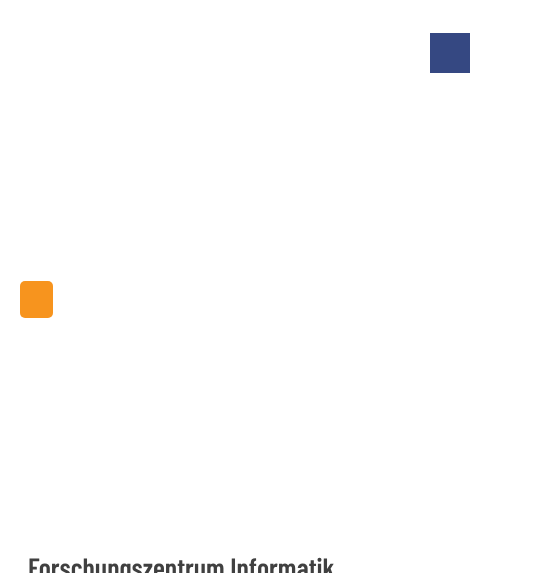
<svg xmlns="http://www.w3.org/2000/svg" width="551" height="573">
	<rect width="100%" height="100%" fill="#FFFFFF" />
	<rect x="430" y="33" width="40" height="40" fill="#354882" />
	<rect x="20" y="281" width="33" height="37" rx="5" fill="#F7941E" />
	<text x="28" y="578" font-family="Barlow Condensed" font-size="28" font-weight="600" fill="#404040">Forschungszentrum Informatik</text>
</svg>
